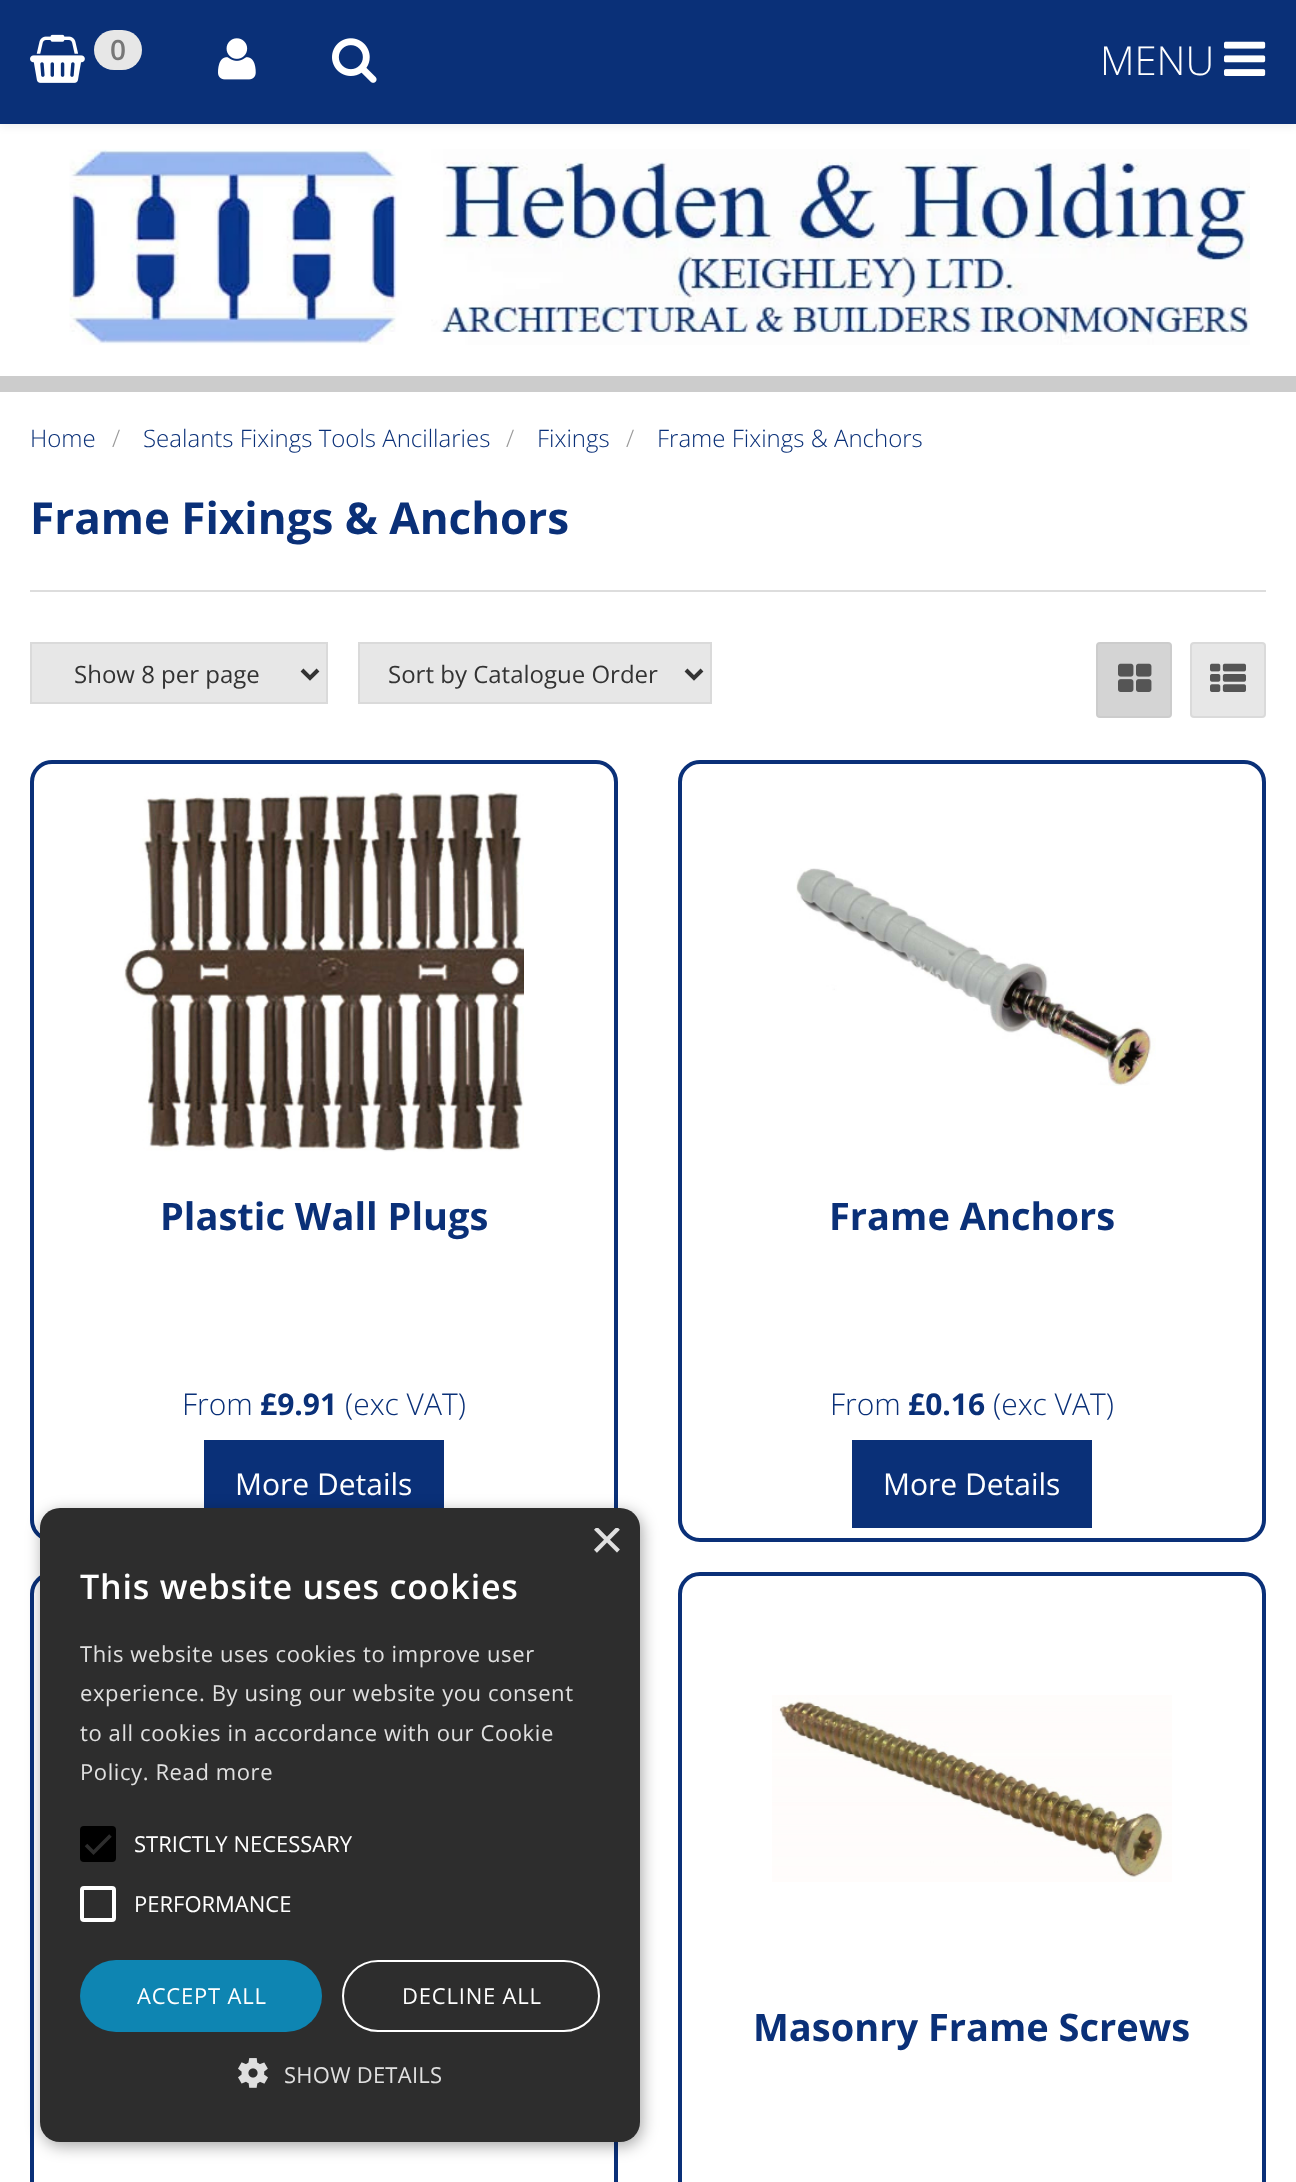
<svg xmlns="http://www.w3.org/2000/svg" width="1296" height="2182">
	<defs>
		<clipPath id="clip1"><rect x="590" y="1528" width="30" height="30" /></clipPath>
	</defs>
	<rect width="100%" height="100%" fill="#CCCCCC" />
	<rect x="0" y="124" width="1296" height="252" fill="#FFFFFF" />
	<rect x="0" y="2" width="1296" height="124" fill="#000000" fill-opacity="0.07" filter="blur(5px)" />
	<rect x="0" y="0" width="1296" height="124" fill="#0A3078" />
	<image x="30" y="34" width="55" height="49" href="assets/img1.png" />
	<rect x="94" y="30" width="48" height="40" rx="20" fill="#E7E7E7" />
	<text x="110" y="60" font-family="Open Sans" font-size="28" font-weight="600" fill="#777777">0</text>
	<image x="218" y="38" width="38" height="42" href="assets/img2.png" />
	<image x="332" y="38" width="45" height="45" href="assets/img3.png" />
	<text x="1100" y="75" font-family="Open Sans" font-size="40" font-weight="300" fill="#FFFFFF">MENU</text>
	<image x="1224" y="41" width="42" height="35" href="assets/img4.png" />
	<image x="69" y="149" width="1181" height="196" href="assets/img5.png" />
	<rect x="0" y="392" width="1296" height="1790" fill="#FFFFFF" />
	<text x="30" y="447" font-family="Open Sans" font-size="24" font-weight="300" fill="#0A3078">Home</text>
	<text x="112" y="447" font-family="Open Sans" font-size="24" font-weight="300" fill="#999999">/</text>
	<text x="143" y="447" font-family="Open Sans" font-size="24" font-weight="300" fill="#0A3078">Sealants Fixings Tools Ancillaries</text>
	<text x="506" y="447" font-family="Open Sans" font-size="24" font-weight="300" fill="#999999">/</text>
	<text x="537" y="447" font-family="Open Sans" font-size="24" font-weight="300" fill="#0A3078">Fixings</text>
	<text x="626" y="447" font-family="Open Sans" font-size="24" font-weight="300" fill="#999999">/</text>
	<text x="657" y="447" font-family="Open Sans" font-size="24" font-weight="300" fill="#0A3078">Frame Fixings &amp; Anchors</text>
	<text x="30" y="534" font-family="Open Sans" font-size="44" font-weight="700" fill="#0A3078">Frame Fixings &amp; Anchors</text>
	<rect x="30" y="590" width="1236" height="2" fill="#DDDDDD" />
	<rect x="31" y="643" width="296" height="60" fill="#E7E7E7" stroke="#DADADA" stroke-width="2" />
	<path d="M302 670L310 678L318 670" fill="none" stroke="#333333" stroke-width="4" />
	<text x="74" y="683" font-family="Open Sans" font-size="24" fill="#333333">Show 8 per page</text>
	<rect x="359" y="643" width="352" height="60" fill="#E7E7E7" stroke="#DADADA" stroke-width="2" />
	<path d="M686 670L694 678L702 670" fill="none" stroke="#333333" stroke-width="4" />
	<text x="388" y="683" font-family="Open Sans" font-size="24" fill="#333333">Sort by Catalogue Order</text>
	<rect x="1097" y="643" width="74" height="74" rx="3" fill="#D4D4D4" stroke="#CCCCCC" stroke-width="2" />
	<image x="1118" y="663" width="34" height="29" href="assets/img6.png" />
	<rect x="1191" y="643" width="74" height="74" rx="3" fill="#E7E7E7" stroke="#DADADA" stroke-width="2" />
	<image x="1210" y="663" width="36" height="29" href="assets/img7.png" />
	<rect x="32" y="762" width="584" height="778" rx="20" fill="none" stroke="#0A3078" stroke-width="4" />
	<image x="124" y="790" width="400" height="362" href="assets/img8.png" />
	<text x="160" y="1230" font-family="Open Sans" font-size="38" font-weight="700" fill="#0A3078">Plastic Wall Plugs</text>
	<text x="182" y="1415" font-family="Open Sans" font-size="30" font-weight="300" fill="#0A3078">From</text>
	<text x="260" y="1415" font-family="Open Sans" font-size="30" font-weight="700" fill="#0A3078">£9.91</text>
	<text x="345" y="1415" font-family="Open Sans" font-size="30" font-weight="300" fill="#0A3078">(exc VAT)</text>
	<rect x="204" y="1440" width="240" height="68" fill="#0A3078" />
	<text x="235" y="1495" font-family="Open Sans" font-size="30" fill="#FFFFFF">More Details</text>
	<rect x="680" y="762" width="584" height="778" rx="20" fill="none" stroke="#0A3078" stroke-width="4" />
	<image x="796" y="868" width="360" height="218" href="assets/img9.png" />
	<text x="829" y="1230" font-family="Open Sans" font-size="38" font-weight="700" fill="#0A3078">Frame Anchors</text>
	<text x="830" y="1415" font-family="Open Sans" font-size="30" font-weight="300" fill="#0A3078">From</text>
	<text x="908" y="1415" font-family="Open Sans" font-size="30" font-weight="700" fill="#0A3078">£0.16</text>
	<text x="993" y="1415" font-family="Open Sans" font-size="30" font-weight="300" fill="#0A3078">(exc VAT)</text>
	<rect x="852" y="1440" width="240" height="88" fill="#0A3078" />
	<text x="883" y="1495" font-family="Open Sans" font-size="30" fill="#FFFFFF">More Details</text>
	<rect x="32" y="1574" width="584" height="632" rx="20" fill="none" stroke="#0A3078" stroke-width="4" />
	<rect x="680" y="1574" width="584" height="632" rx="20" fill="none" stroke="#0A3078" stroke-width="4" />
	<image x="772" y="1695" width="400" height="187" href="assets/img10.png" />
	<text x="753" y="2041" font-family="Open Sans" font-size="38" font-weight="700" fill="#0A3078">Masonry Frame Screws</text>
	<rect x="42" y="1512" width="600" height="634" rx="20" fill="#000000" fill-opacity="0.35" filter="blur(8px)" />
	<rect x="40" y="1508" width="600" height="634" rx="20" fill="#2D2D2D" />
	<g clip-path="url(#clip1)">
		<text x="590" y="1559" font-family="Liberation Sans" font-size="58" fill="#E0E0E0">×</text>
	</g>
	<text x="80" y="1599" font-family="Open Sans" font-size="34" font-weight="600" letter-spacing="0.8" fill="#FFFFFF">This website uses cookies</text>
	<g font-family="Open Sans" font-size="22" letter-spacing="0.6" fill="#E0E0E0">
		<text x="80" y="1662">This website uses cookies to improve user</text>
		<text x="80" y="1701">experience. By using our website you consent</text>
		<text x="80" y="1741">to all cookies in accordance with our Cookie</text>
		<text x="80" y="1780">Policy. Read more</text>
	</g>
	<rect x="80" y="1826" width="36" height="36" rx="4" fill="#000000" />
	<path d="M86 1845L93.5 1852.5L110.5 1835.5" fill="none" stroke="#2D2D2D" stroke-width="3.6" />
	<text x="134" y="1852" font-family="Open Sans" font-size="22" fill="#FFFFFF">STRICTLY NECESSARY</text>
	<rect x="82" y="1888" width="32" height="32" rx="2" fill="none" stroke="#FFFFFF" stroke-width="4" />
	<text x="134" y="1912" font-family="Open Sans" font-size="22" fill="#FFFFFF">PERFORMANCE</text>
	<rect x="80" y="1960" width="242" height="72" rx="36" fill="#0E85B2" />
	<text x="137" y="2004" font-family="Open Sans" font-size="22" letter-spacing="0.8" fill="#FFFFFF">ACCEPT ALL</text>
	<rect x="343" y="1961" width="256" height="70" rx="35" fill="none" stroke="#FFFFFF" stroke-width="2" />
	<text x="402" y="2004" font-family="Open Sans" font-size="22" letter-spacing="0.8" fill="#FFFFFF">DECLINE ALL</text>
	<image x="238" y="2058" width="30" height="30" href="assets/img11.png" />
	<text x="284" y="2083" font-family="Open Sans" font-size="22" letter-spacing="0.25" fill="#E0E0E0">SHOW DETAILS</text>
</svg>
